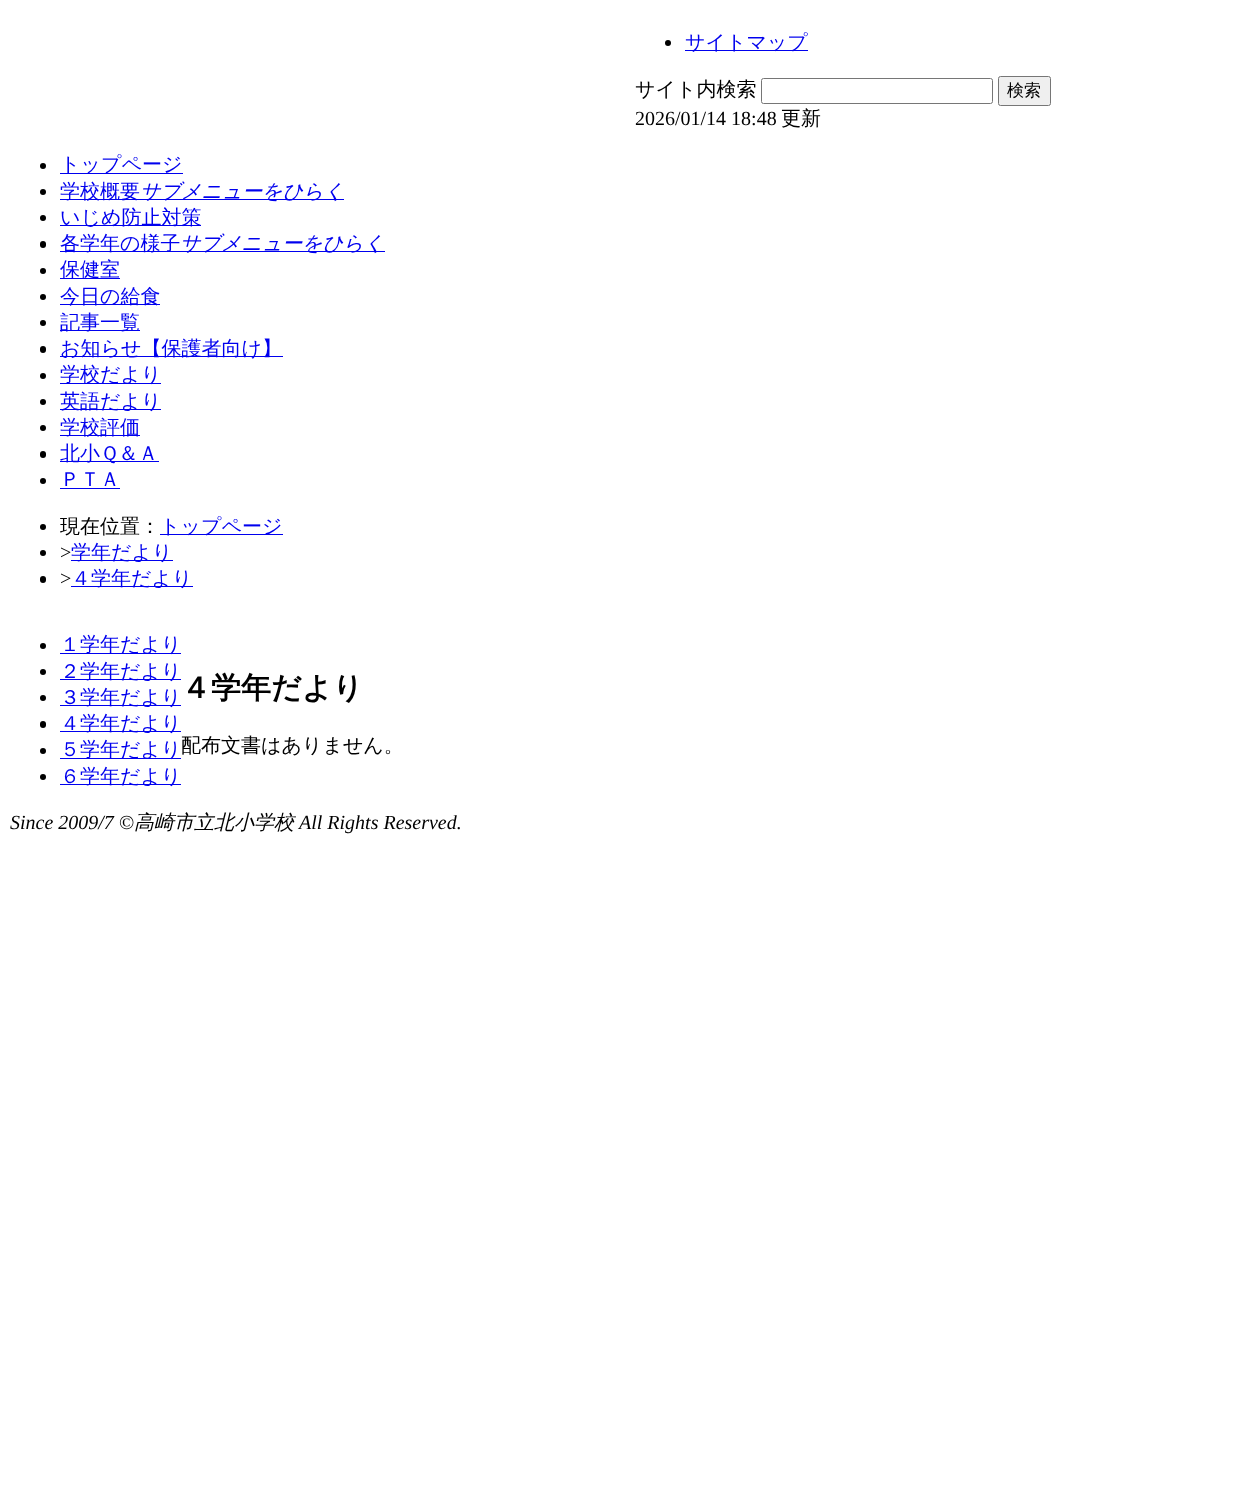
<svg xmlns="http://www.w3.org/2000/svg" width="1245" height="1511">
	<rect width="100%" height="100%" fill="#FFFFFF" />
	<circle cx="668" cy="43" r="3" fill="#000000" />
	<rect x="685" y="50" width="123" height="1" fill="#0000EE" />
	<text x="685" y="49" font-family="WenQuanYi Zen Hei" font-size="20" font-weight="500" fill="#0000EE">サイトマップ</text>
	<text x="635" y="96" font-family="WenQuanYi Zen Hei" font-size="20" font-weight="500" fill="#000000">サイト内検索</text>
	<rect x="761.5" y="78.5" width="231" height="25" rx="2" fill="none" stroke="#767676" />
	<rect x="998.5" y="76.5" width="52" height="29" rx="2" fill="#EFEFEF" stroke="#767676" />
	<text x="1007" y="96" font-family="WenQuanYi Zen Hei" font-size="17" font-weight="500" fill="#000000">検索</text>
	<text x="635" y="125" font-family="Liberation Serif" font-size="20" fill="#000000">2026/01/14 18:48</text>
	<text x="781" y="125" font-family="WenQuanYi Zen Hei" font-size="20" font-weight="500" fill="#000000">更新</text>
	<circle cx="43" cy="166" r="3" fill="#000000" />
	<rect x="60" y="173" width="123" height="1" fill="#0000EE" />
	<text x="60" y="171" font-family="WenQuanYi Zen Hei" font-size="20" font-weight="500" fill="#0000EE">トップページ</text>
	<circle cx="43" cy="192" r="3" fill="#000000" />
	<rect x="60" y="199" width="284" height="1" fill="#0000EE" />
	<text x="60" y="198" font-family="WenQuanYi Zen Hei" font-size="20" font-weight="500" fill="#0000EE">学校概要</text>
	<text x="140" y="198" font-family="WenQuanYi Zen Hei" font-size="20" font-weight="500" font-style="italic" fill="#0000EE">サブメニューをひらく</text>
	<circle cx="43" cy="218" r="3" fill="#000000" />
	<rect x="60" y="225" width="141" height="1" fill="#0000EE" />
	<text x="60" y="224" font-family="WenQuanYi Zen Hei" font-size="20" font-weight="500" fill="#0000EE">いじめ防止対策</text>
	<rect x="40" y="241" width="6" height="7" rx="3" fill="#000000" />
	<rect x="60" y="251" width="325" height="1" fill="#0000EE" />
	<text x="60" y="250" font-family="WenQuanYi Zen Hei" font-size="20" font-weight="500" fill="#0000EE">各学年の様子</text>
	<text x="180" y="250" font-family="WenQuanYi Zen Hei" font-size="20" font-weight="500" font-style="italic" fill="#0000EE">サブメニューをひらく</text>
	<circle cx="43" cy="271" r="3" fill="#000000" />
	<rect x="60" y="278" width="60" height="1" fill="#0000EE" />
	<text x="60" y="276" font-family="WenQuanYi Zen Hei" font-size="20" font-weight="500" fill="#0000EE">保健室</text>
	<circle cx="43" cy="297" r="3" fill="#000000" />
	<rect x="60" y="304" width="100" height="1" fill="#0000EE" />
	<text x="60" y="303" font-family="WenQuanYi Zen Hei" font-size="20" font-weight="500" fill="#0000EE">今日の給食</text>
	<circle cx="43" cy="323" r="3" fill="#000000" />
	<rect x="60" y="330" width="80" height="1" fill="#0000EE" />
	<text x="60" y="329" font-family="WenQuanYi Zen Hei" font-size="20" font-weight="500" fill="#0000EE">記事一覧</text>
	<rect x="40" y="346" width="6" height="7" rx="3" fill="#000000" />
	<rect x="60" y="356" width="223" height="1" fill="#0000EE" />
	<text x="60" y="355" font-family="WenQuanYi Zen Hei" font-size="20" font-weight="500" fill="#0000EE">お知らせ【保護者向け】</text>
	<circle cx="43" cy="376" r="3" fill="#000000" />
	<rect x="60" y="383" width="101" height="1" fill="#0000EE" />
	<text x="60" y="381" font-family="WenQuanYi Zen Hei" font-size="20" font-weight="500" fill="#0000EE">学校だより</text>
	<circle cx="43" cy="402" r="3" fill="#000000" />
	<rect x="60" y="409" width="101" height="1" fill="#0000EE" />
	<text x="60" y="408" font-family="WenQuanYi Zen Hei" font-size="20" font-weight="500" fill="#0000EE">英語だより</text>
	<circle cx="43" cy="428" r="3" fill="#000000" />
	<rect x="60" y="435" width="80" height="1" fill="#0000EE" />
	<text x="60" y="434" font-family="WenQuanYi Zen Hei" font-size="20" font-weight="500" fill="#0000EE">学校評価</text>
	<rect x="40" y="451" width="6" height="7" rx="3" fill="#000000" />
	<rect x="60" y="461" width="99" height="1" fill="#0000EE" />
	<text x="60" y="460" font-family="WenQuanYi Zen Hei" font-size="20" font-weight="500" fill="#0000EE">北小Ｑ＆Ａ</text>
	<circle cx="43" cy="481" r="3" fill="#000000" />
	<text x="60" y="486" font-family="WenQuanYi Zen Hei" font-size="20" font-weight="500" fill="#0000EE">ＰＴＡ</text>
	<rect x="60" y="488" width="60" height="1" fill="#0000EE" />
	<circle cx="43" cy="527" r="3" fill="#000000" />
	<text x="60" y="533" font-family="WenQuanYi Zen Hei" font-size="20" font-weight="500" fill="#000000">現在位置：</text>
	<rect x="160" y="534" width="123" height="1" fill="#0000EE" />
	<text x="160" y="533" font-family="WenQuanYi Zen Hei" font-size="20" font-weight="500" fill="#0000EE">トップページ</text>
	<circle cx="43" cy="553" r="3" fill="#000000" />
	<text x="60" y="559" font-family="Liberation Serif" font-size="20" fill="#000000">&gt;</text>
	<rect x="71" y="560" width="102" height="1" fill="#0000EE" />
	<text x="71" y="559" font-family="WenQuanYi Zen Hei" font-size="20" font-weight="500" fill="#0000EE">学年だより</text>
	<rect x="40" y="576" width="6" height="7" rx="3" fill="#000000" />
	<text x="60" y="585" font-family="Liberation Serif" font-size="20" fill="#000000">&gt;</text>
	<rect x="71" y="586" width="122" height="1" fill="#0000EE" />
	<text x="71" y="585" font-family="WenQuanYi Zen Hei" font-size="20" font-weight="500" fill="#0000EE">４学年だより</text>
	<circle cx="43" cy="646" r="3" fill="#000000" />
	<rect x="60" y="653" width="121" height="1" fill="#0000EE" />
	<text x="60" y="651" font-family="WenQuanYi Zen Hei" font-size="20" font-weight="500" fill="#0000EE">１学年だより</text>
	<circle cx="43" cy="672" r="3" fill="#000000" />
	<rect x="60" y="679" width="121" height="1" fill="#0000EE" />
	<text x="60" y="678" font-family="WenQuanYi Zen Hei" font-size="20" font-weight="500" fill="#0000EE">２学年だより</text>
	<circle cx="43" cy="698" r="3" fill="#000000" />
	<rect x="60" y="705" width="121" height="1" fill="#0000EE" />
	<text x="60" y="704" font-family="WenQuanYi Zen Hei" font-size="20" font-weight="500" fill="#0000EE">３学年だより</text>
	<rect x="40" y="721" width="6" height="7" rx="3" fill="#000000" />
	<rect x="60" y="731" width="121" height="1" fill="#0000EE" />
	<text x="60" y="730" font-family="WenQuanYi Zen Hei" font-size="20" font-weight="500" fill="#0000EE">４学年だより</text>
	<circle cx="43" cy="751" r="3" fill="#000000" />
	<rect x="60" y="758" width="121" height="1" fill="#0000EE" />
	<text x="60" y="756" font-family="WenQuanYi Zen Hei" font-size="20" font-weight="500" fill="#0000EE">５学年だより</text>
	<circle cx="43" cy="777" r="3" fill="#000000" />
	<rect x="60" y="784" width="121" height="1" fill="#0000EE" />
	<text x="60" y="783" font-family="WenQuanYi Zen Hei" font-size="20" font-weight="500" fill="#0000EE">６学年だより</text>
	<text x="181" y="698" font-family="WenQuanYi Zen Hei" font-size="30" font-weight="700" fill="#000000">４学年だより</text>
	<text x="181" y="752" font-family="WenQuanYi Zen Hei" font-size="20" font-weight="500" fill="#000000">配布文書はありません。</text>
	<text x="10" y="829" font-family="Liberation Serif" font-size="20" font-style="italic" fill="#000000">Since 2009/7 ©</text>
	<text x="134" y="829" font-family="WenQuanYi Zen Hei" font-size="20" font-weight="500" font-style="italic" fill="#000000">高崎市立北小学校</text>
	<text x="299" y="829" font-family="Liberation Serif" font-size="20" font-style="italic" fill="#000000">All Rights Reserved.</text>
</svg>
